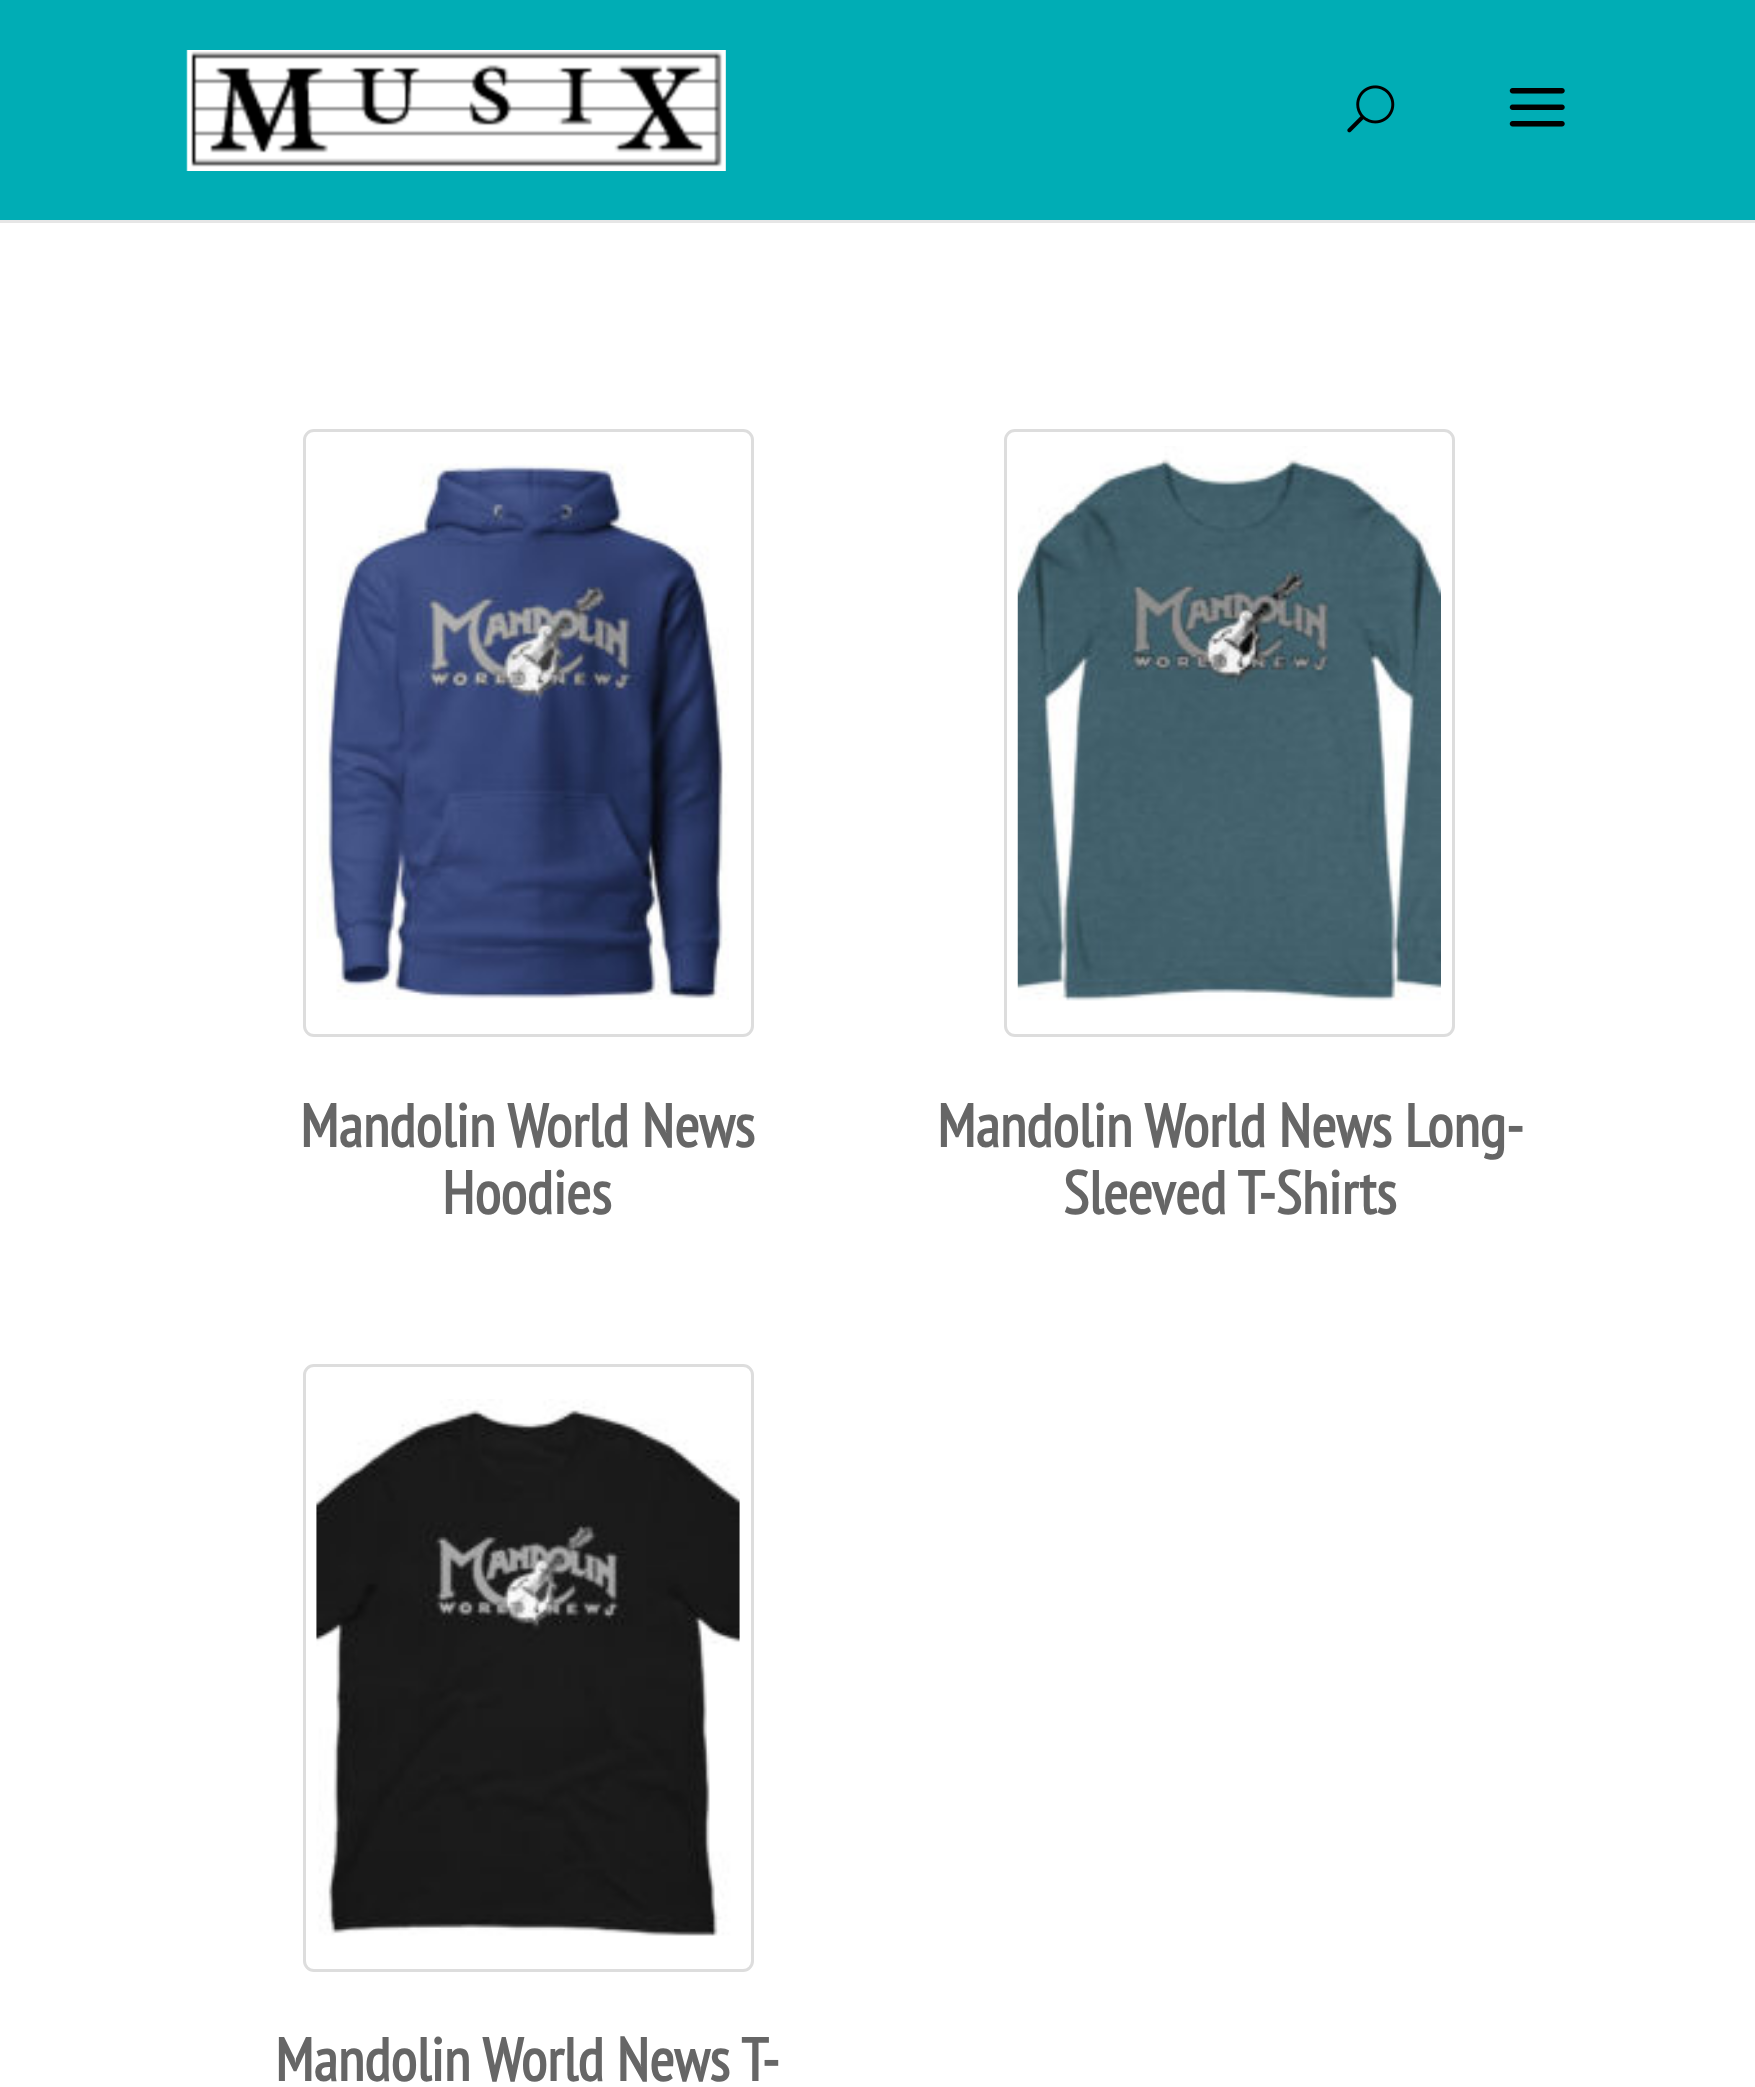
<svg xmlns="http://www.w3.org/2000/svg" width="1755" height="2087">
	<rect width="100%" height="100%" fill="#FFFFFF" />
	<rect x="0" y="220" width="1755" height="3" fill="#E6E6E6" />
	<rect x="0" y="0" width="1755" height="220" fill="#00ADB5" />
	<image x="186" y="50" width="540" height="121" href="assets/img1.png" />
	<image x="1347" y="85" width="48" height="48" href="assets/img2.png" />
	<image x="1509" y="88" width="56" height="39" href="assets/img3.png" />
	<rect x="304.5" y="430.5" width="448" height="605" rx="9.5" fill="none" stroke="#DDDDDD" stroke-width="3" />
	<image x="316" y="463" width="413" height="537" href="assets/img4.png" />
	<g font-family="PT Sans Narrow" font-size="60.5" font-weight="700" fill="#666666">
		<text x="300" y="1147">Mandolin World News</text>
		<text x="442" y="1214">Hoodies</text>
	</g>
	<rect x="1005.5" y="430.5" width="448" height="605" rx="9.5" fill="none" stroke="#DDDDDD" stroke-width="3" />
	<image x="1017" y="446" width="424" height="555" href="assets/img5.png" />
	<g font-family="PT Sans Narrow" font-size="60.5" font-weight="700" fill="#666666">
		<text x="937" y="1147">Mandolin World News Long-</text>
		<text x="1063" y="1214">Sleeved T-Shirts</text>
	</g>
	<rect x="304.5" y="1365.5" width="448" height="605" rx="9.5" fill="none" stroke="#DDDDDD" stroke-width="3" />
	<image x="316" y="1399" width="424" height="537" href="assets/img6.png" />
	<text x="275" y="2081" font-family="PT Sans Narrow" font-size="60.5" font-weight="700" fill="#666666">Mandolin World News T-</text>
</svg>
